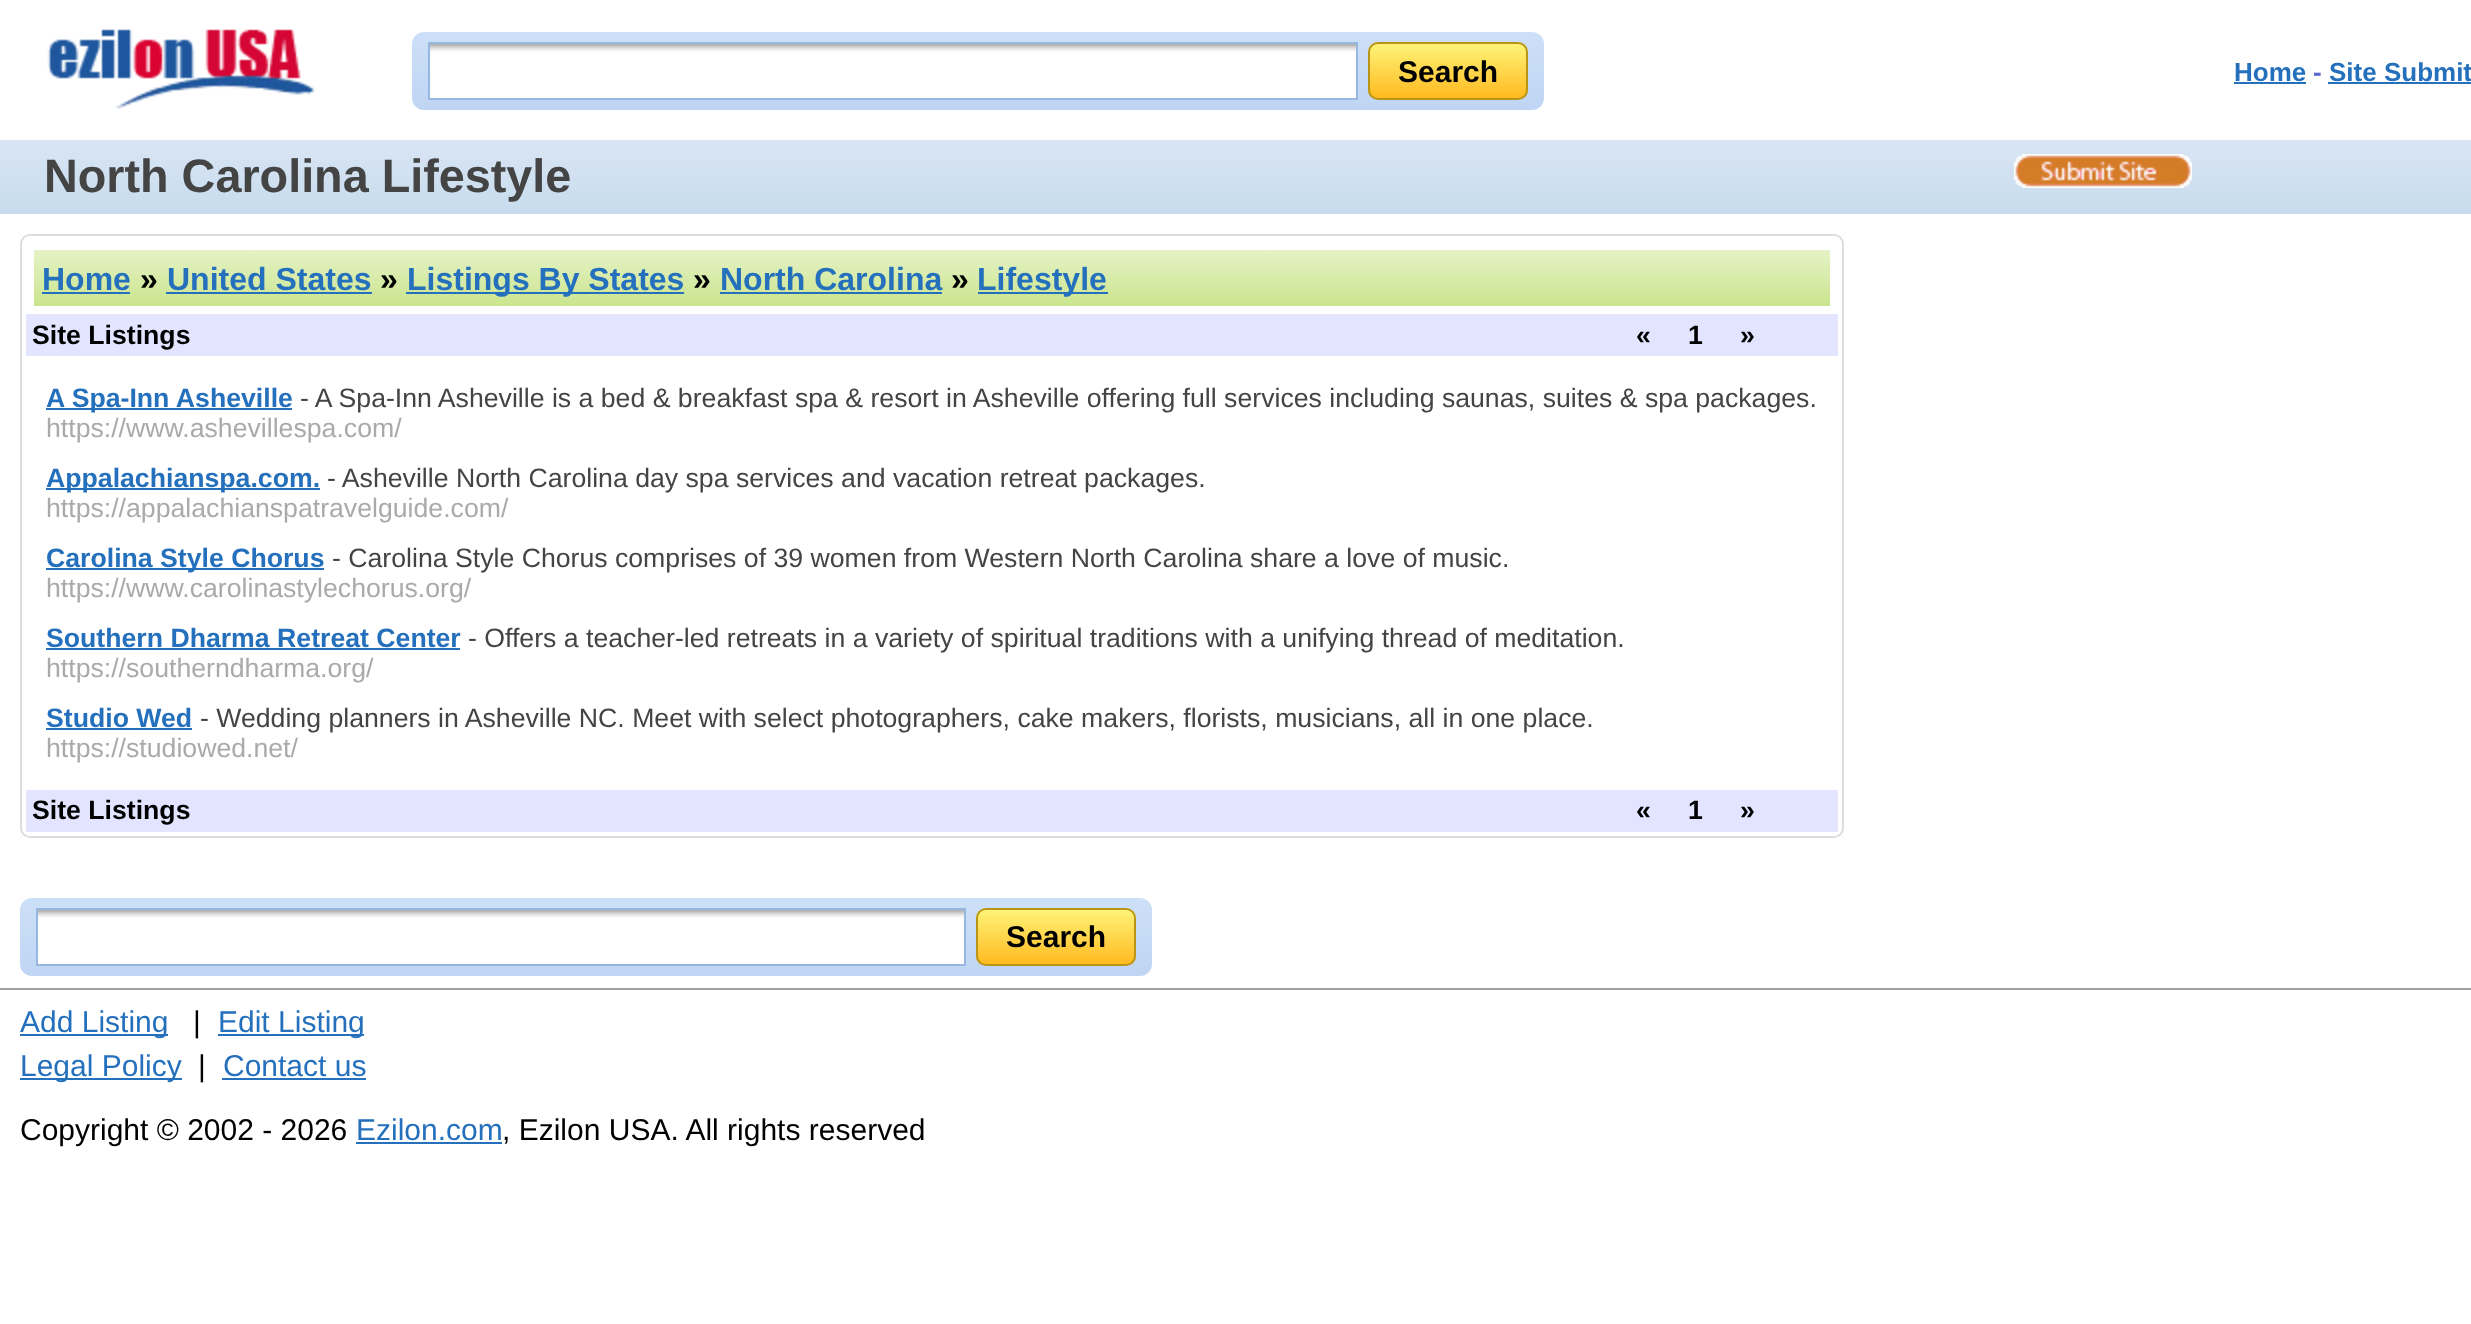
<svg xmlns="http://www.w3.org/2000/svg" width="2471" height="1324">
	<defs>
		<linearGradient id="g1" gradientUnits="userSpaceOnUse" x1="978" y1="32" x2="978" y2="110"><stop offset="0" stop-color="#CDE0F9" /><stop offset="1" stop-color="#BFD5F3" /></linearGradient>
		<clipPath id="clip1"><rect x="1368" y="42" width="160" height="58" rx="10" /></clipPath>
		<linearGradient id="g2" gradientUnits="userSpaceOnUse" x1="1448" y1="44" x2="1448" y2="98"><stop offset="0" stop-color="#FEF378" /><stop offset="1" stop-color="#FFBA20" /></linearGradient>
		<linearGradient id="g3" gradientUnits="userSpaceOnUse" x1="1236" y1="140" x2="1236" y2="214"><stop offset="0" stop-color="#D9E5F4" /><stop offset="1" stop-color="#C7DCED" /></linearGradient>
		<linearGradient id="g4" gradientUnits="userSpaceOnUse" x1="932" y1="250" x2="932" y2="306"><stop offset="0" stop-color="#E5F2C6" /><stop offset="1" stop-color="#CBE58E" /></linearGradient>
		<linearGradient id="g5" gradientUnits="userSpaceOnUse" x1="586" y1="898" x2="586" y2="976"><stop offset="0" stop-color="#CDE0F9" /><stop offset="1" stop-color="#BFD5F3" /></linearGradient>
		<clipPath id="clip2"><rect x="976" y="908" width="160" height="58" rx="10" /></clipPath>
		<linearGradient id="g6" gradientUnits="userSpaceOnUse" x1="1056" y1="910" x2="1056" y2="964"><stop offset="0" stop-color="#FEF378" /><stop offset="1" stop-color="#FFBA20" /></linearGradient>
	</defs>
	<rect width="100%" height="100%" fill="#FFFFFF" />
	<image x="47" y="29" width="268" height="80" href="assets/img1.png" />
	<rect x="412" y="32" width="1132" height="78" rx="12" fill="url(#g1)" />
	<rect x="430" y="52" width="926" height="46" fill="#FFFFFF" />
	<image x="430" y="44" width="926" height="8" href="assets/img2.png" />
	<rect x="429" y="43" width="928" height="56" fill="none" stroke="#98B7E0" stroke-width="2" />
	<g clip-path="url(#clip1)">
		<rect x="1368" y="44" width="160" height="54" fill="url(#g2)" />
	</g>
	<rect x="1369" y="43" width="158" height="56" rx="9" fill="none" stroke="#BA9515" stroke-width="2" />
	<text x="1398" y="82" font-family="Liberation Sans" font-size="30" font-weight="700" fill="#000000">Search</text>
	<text x="2234" y="81" font-family="Liberation Sans" font-size="26" font-weight="700" fill="#2470BD">Home</text>
	<rect x="2234" y="82" width="72" height="2" fill="#2470BD" />
	<text x="2313" y="81" font-family="Liberation Sans" font-size="26" font-weight="700" fill="#5868D0">-</text>
	<text x="2329" y="81" font-family="Liberation Sans" font-size="26" font-weight="700" fill="#2470BD">Site Submit</text>
	<rect x="2328" y="82" width="143" height="2" fill="#2470BD" />
	<rect x="0" y="140" width="2471" height="74" fill="url(#g3)" />
	<text x="44" y="192" font-family="Liberation Sans" font-size="46.75" font-weight="700" fill="#444444">North Carolina Lifestyle</text>
	<image x="2014" y="154" width="178" height="34" href="assets/img3.png" />
	<rect x="21" y="235" width="1822" height="602" rx="9" fill="none" stroke="#DDDDDD" stroke-width="2" />
	<rect x="34" y="250" width="1796" height="56" fill="url(#g4)" />
	<text x="42" y="290" font-family="Liberation Sans" font-size="32" font-weight="700" fill="#2470BD">Home</text>
	<rect x="42" y="292" width="88" height="2" fill="#2470BD" />
	<text x="140" y="290" font-family="Liberation Sans" font-size="32" font-weight="700" fill="#000000">»</text>
	<text x="167" y="290" font-family="Liberation Sans" font-size="32" font-weight="700" fill="#2470BD">United States</text>
	<rect x="166" y="292" width="206" height="2" fill="#2470BD" />
	<text x="380" y="290" font-family="Liberation Sans" font-size="32" font-weight="700" fill="#000000">»</text>
	<rect x="406" y="292" width="278" height="2" fill="#2470BD" />
	<text x="407" y="290" font-family="Liberation Sans" font-size="32" font-weight="700" fill="#2470BD">Listings By States</text>
	<text x="693" y="290" font-family="Liberation Sans" font-size="32" font-weight="700" fill="#000000">»</text>
	<text x="720" y="290" font-family="Liberation Sans" font-size="32" font-weight="700" fill="#2470BD">North Carolina</text>
	<rect x="720" y="292" width="222" height="2" fill="#2470BD" />
	<text x="951" y="290" font-family="Liberation Sans" font-size="32" font-weight="700" fill="#000000">»</text>
	<rect x="978" y="292" width="130" height="2" fill="#2470BD" />
	<text x="977" y="290" font-family="Liberation Sans" font-size="32" font-weight="700" fill="#2470BD">Lifestyle</text>
	<rect x="26" y="314" width="1812" height="42" fill="#E3E4FF" />
	<g font-family="Liberation Sans" font-size="26.67" font-weight="700" fill="#000000">
		<text x="32" y="344">Site Listings</text>
		<text x="1636" y="344">«</text>
		<text x="1688" y="344">1</text>
		<text x="1740" y="344">»</text>
	</g>
	<rect x="46" y="408" width="246" height="2" fill="#2470BD" />
	<text x="46" y="407" font-family="Liberation Sans" font-size="26.67" font-weight="700" fill="#2470BD">A Spa-Inn Asheville</text>
	<text x="300" y="407" font-family="Liberation Sans" font-size="26.67" fill="#444444">- A Spa-Inn Asheville is a bed &amp; breakfast spa &amp; resort in Asheville offering full services including saunas, suites &amp; spa packages.</text>
	<text x="46" y="437" font-family="Liberation Sans" font-size="26.67" fill="#AAAAAA">https://www.ashevillespa.com/</text>
	<rect x="46" y="488" width="274" height="2" fill="#2470BD" />
	<text x="46" y="487" font-family="Liberation Sans" font-size="26.67" font-weight="700" fill="#2470BD">Appalachianspa.com.</text>
	<text x="327" y="487" font-family="Liberation Sans" font-size="26.67" fill="#444444">- Asheville North Carolina day spa services and vacation retreat packages.</text>
	<text x="46" y="517" font-family="Liberation Sans" font-size="26.67" fill="#AAAAAA">https://appalachianspatravelguide.com/</text>
	<rect x="46" y="568" width="278" height="2" fill="#2470BD" />
	<text x="46" y="567" font-family="Liberation Sans" font-size="26.67" font-weight="700" fill="#2470BD">Carolina Style Chorus</text>
	<text x="332" y="567" font-family="Liberation Sans" font-size="26.67" fill="#444444">- Carolina Style Chorus comprises of 39 women from Western North Carolina share a love of music.</text>
	<text x="46" y="597" font-family="Liberation Sans" font-size="26.67" fill="#AAAAAA">https://www.carolinastylechorus.org/</text>
	<text x="46" y="647" font-family="Liberation Sans" font-size="26.67" font-weight="700" fill="#2470BD">Southern Dharma Retreat Center</text>
	<rect x="46" y="648" width="414" height="2" fill="#2470BD" />
	<text x="468" y="647" font-family="Liberation Sans" font-size="26.67" fill="#444444">- Offers a teacher-led retreats in a variety of spiritual traditions with a unifying thread of meditation.</text>
	<text x="46" y="677" font-family="Liberation Sans" font-size="26.67" fill="#AAAAAA">https://southerndharma.org/</text>
	<text x="46" y="727" font-family="Liberation Sans" font-size="26.67" font-weight="700" fill="#2470BD">Studio Wed</text>
	<rect x="46" y="728" width="146" height="2" fill="#2470BD" />
	<text x="200" y="727" font-family="Liberation Sans" font-size="26.67" fill="#444444">- Wedding planners in Asheville NC. Meet with select photographers, cake makers, florists, musicians, all in one place.</text>
	<text x="46" y="757" font-family="Liberation Sans" font-size="26.67" fill="#AAAAAA">https://studiowed.net/</text>
	<rect x="26" y="790" width="1812" height="42" fill="#E3E4FF" />
	<g font-family="Liberation Sans" font-size="26.67" font-weight="700" fill="#000000">
		<text x="32" y="819">Site Listings</text>
		<text x="1636" y="819">«</text>
		<text x="1688" y="819">1</text>
		<text x="1740" y="819">»</text>
	</g>
	<rect x="20" y="898" width="1132" height="78" rx="12" fill="url(#g5)" />
	<rect x="38" y="918" width="926" height="46" fill="#FFFFFF" />
	<image x="38" y="910" width="926" height="8" href="assets/img2.png" />
	<rect x="37" y="909" width="928" height="56" fill="none" stroke="#98B7E0" stroke-width="2" />
	<g clip-path="url(#clip2)">
		<rect x="976" y="910" width="160" height="54" fill="url(#g6)" />
	</g>
	<rect x="977" y="909" width="158" height="56" rx="9" fill="none" stroke="#BA9515" stroke-width="2" />
	<text x="1006" y="947" font-family="Liberation Sans" font-size="30" font-weight="700" fill="#000000">Search</text>
	<rect x="0" y="988" width="2471" height="2" fill="#9F9F9F" />
	<rect x="20" y="1034" width="148" height="2" fill="#2470BD" />
	<text x="20" y="1032" font-family="Liberation Sans" font-size="30" fill="#2470BD">Add Listing</text>
	<text x="193" y="1032" font-family="Liberation Sans" font-size="30" fill="#000000">|</text>
	<rect x="218" y="1034" width="146" height="2" fill="#2470BD" />
	<text x="218" y="1032" font-family="Liberation Sans" font-size="30" fill="#2470BD">Edit Listing</text>
	<rect x="20" y="1078" width="162" height="2" fill="#2470BD" />
	<text x="20" y="1076" font-family="Liberation Sans" font-size="30" fill="#2470BD">Legal Policy</text>
	<text x="198" y="1076" font-family="Liberation Sans" font-size="30" fill="#000000">|</text>
	<text x="223" y="1076" font-family="Liberation Sans" font-size="30" fill="#2470BD">Contact us</text>
	<rect x="222" y="1078" width="144" height="2" fill="#2470BD" />
	<text x="20" y="1140" font-family="Liberation Sans" font-size="30" fill="#000000">Copyright © 2002 - 2026</text>
	<text x="356" y="1140" font-family="Liberation Sans" font-size="30" fill="#2470BD">Ezilon.com</text>
	<rect x="356" y="1142" width="146" height="2" fill="#2470BD" />
	<text x="502" y="1140" font-family="Liberation Sans" font-size="30" fill="#000000">, Ezilon USA. All rights reserved</text>
</svg>
